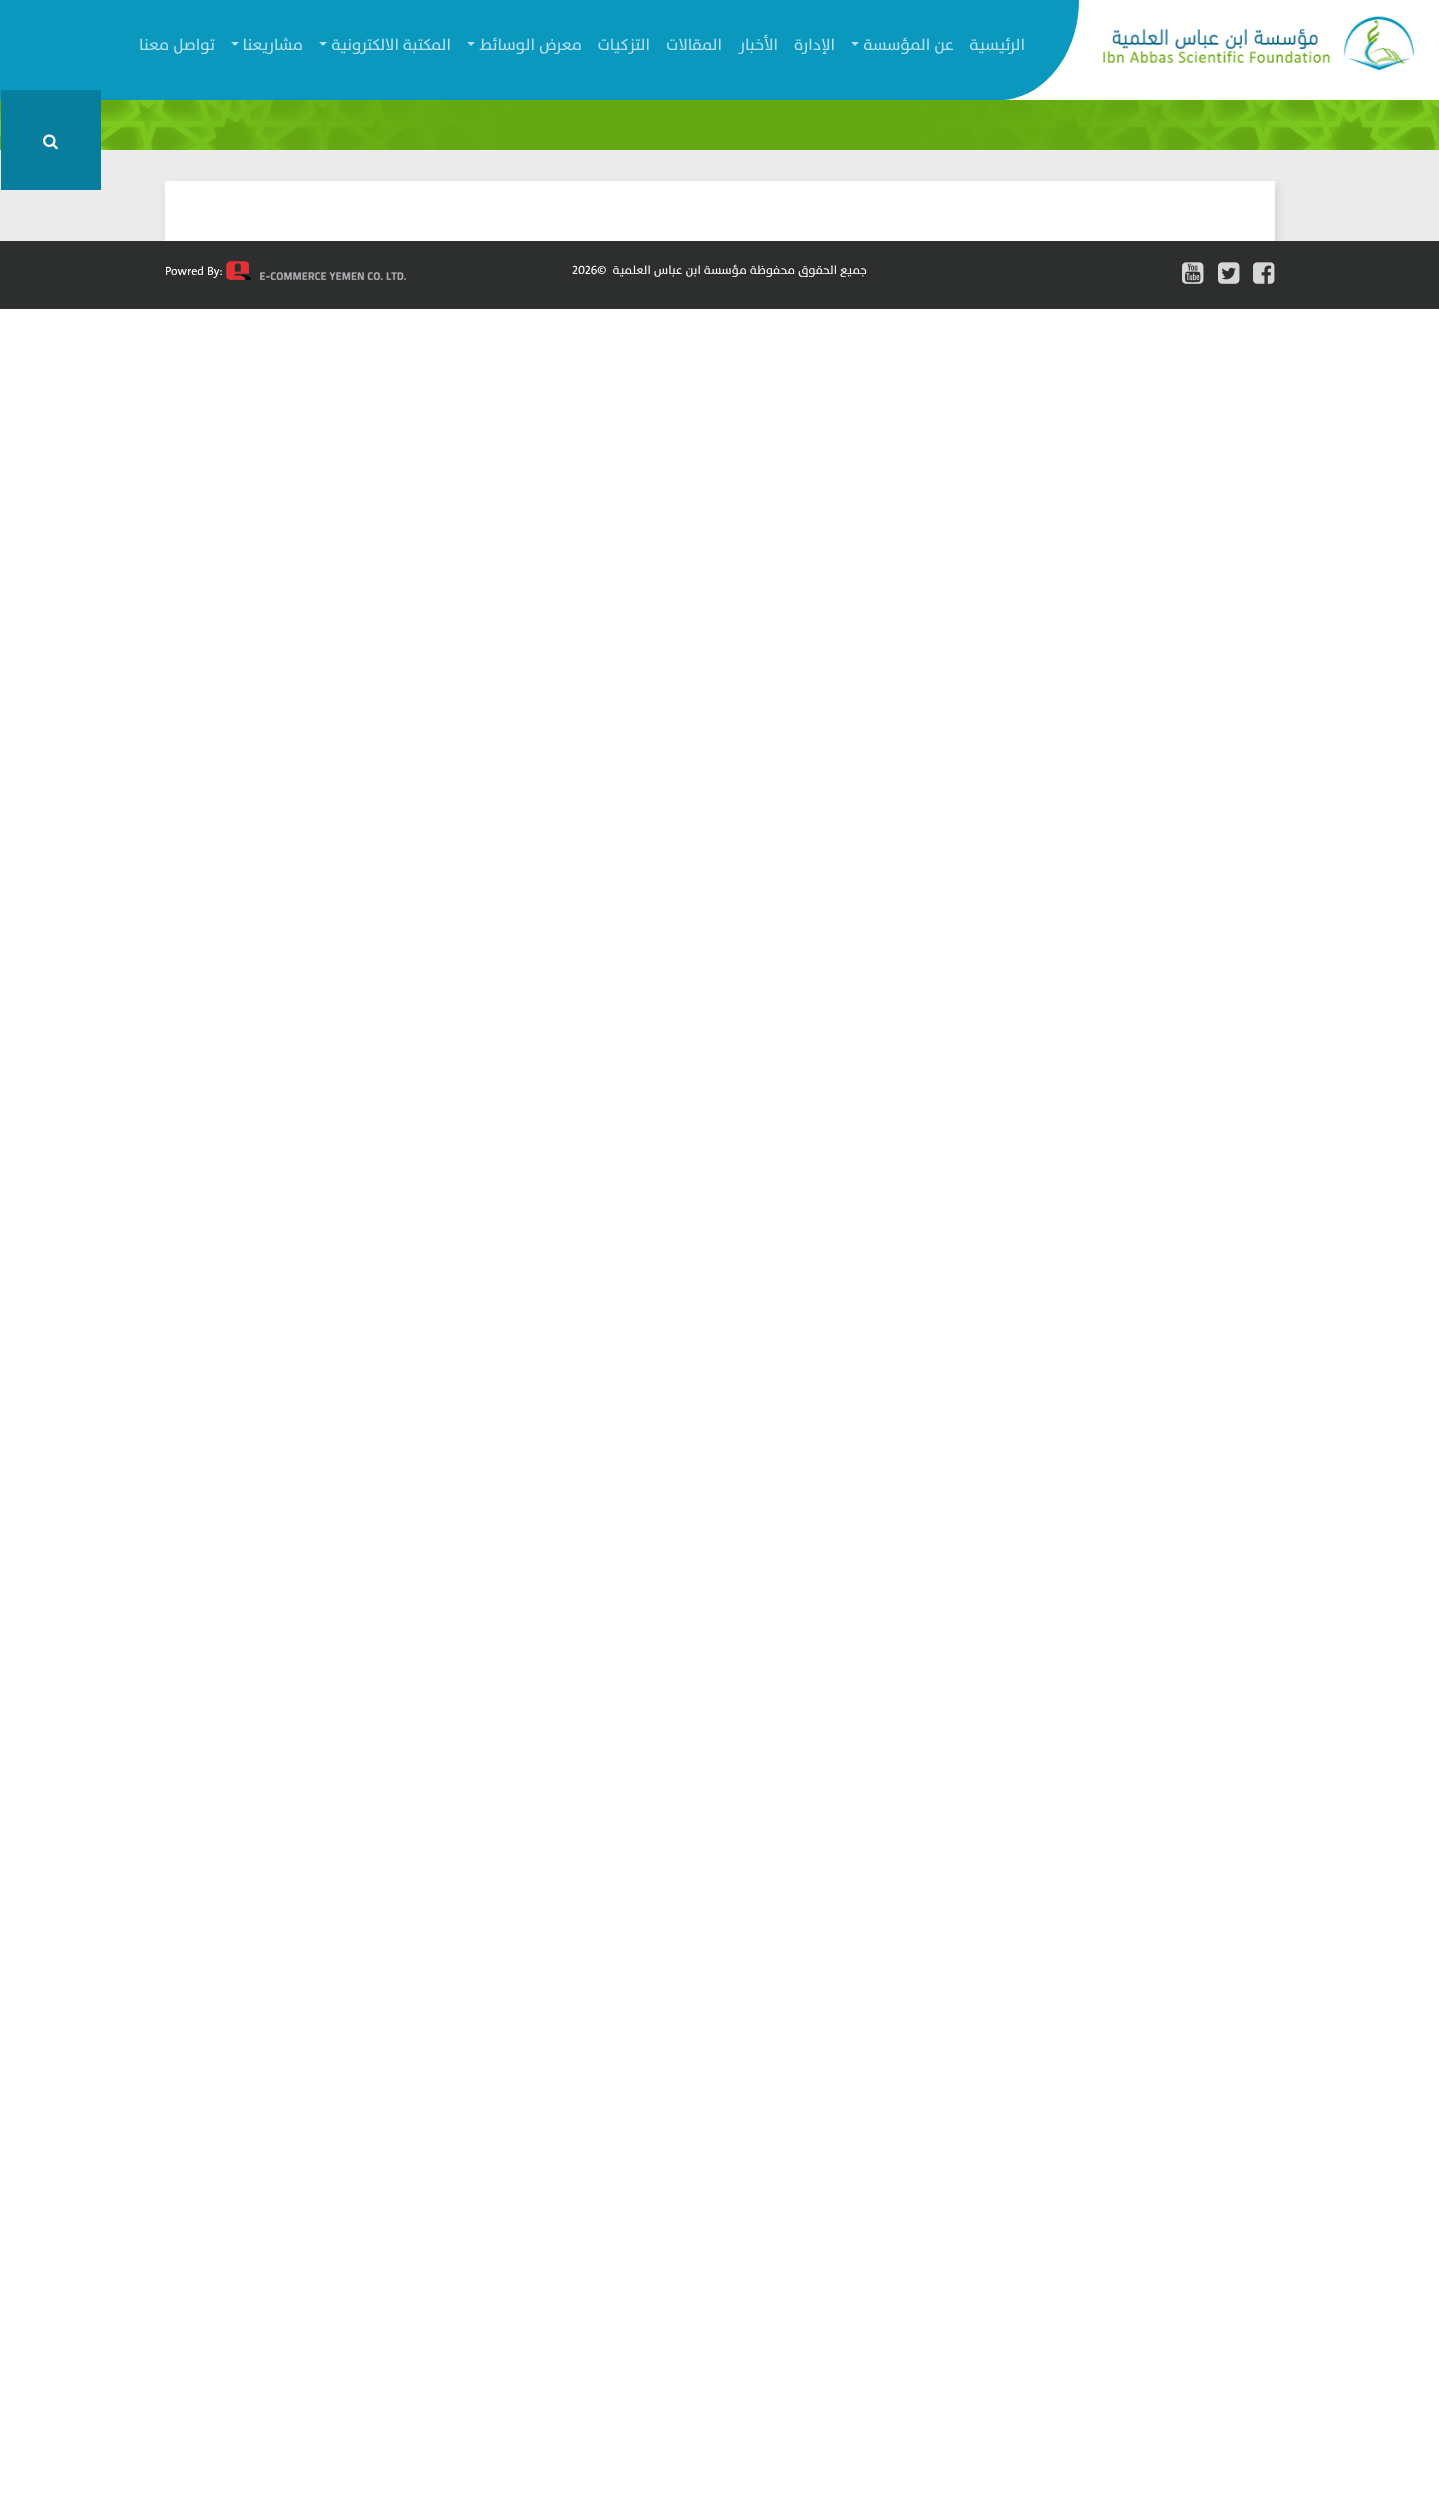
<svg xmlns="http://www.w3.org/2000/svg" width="1439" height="2499">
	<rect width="100%" height="100%" fill="#FFFFFF" />
	<image x="1103" y="16" width="311" height="55" href="assets/img1.png" />
	<path d="M0 0H1079C1079 55 1043 100 999 100H0Z" fill="#0A98BF" />
	<g font-family="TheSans" font-size="16" direction="rtl" fill="#B6E0EC">
		<text x="1025" y="50">الرئيسية</text>
		<text x="954" y="50">عن المؤسسة</text>
	</g>
	<path d="M851 42H859L855 46Z" fill="#B6E0EC" />
	<g font-family="TheSans" font-size="16" direction="rtl" fill="#B6E0EC">
		<text x="835" y="50">الإدارة</text>
		<text x="778" y="50">الأخبار</text>
		<text x="722" y="50">المقالات</text>
		<text x="650" y="50">التزكيات</text>
		<text x="582" y="50">معرض الوسائط</text>
	</g>
	<path d="M467 42H475L471 46Z" fill="#B6E0EC" />
	<text x="451" y="50" font-family="TheSans" font-size="16" direction="rtl" fill="#B6E0EC">المكتبة الالكترونية</text>
	<path d="M319 42H327L323 46Z" fill="#B6E0EC" />
	<text x="303" y="50" font-family="TheSans" font-size="16" direction="rtl" fill="#B6E0EC">مشاريعنا</text>
	<path d="M231 42H239L235 46Z" fill="#B6E0EC" />
	<text x="215" y="50" font-family="TheSans" font-size="16" direction="rtl" fill="#B6E0EC">تواصل معنا</text>
	<image x="0" y="100" width="1439" height="50" href="assets/img3.png" />
	<rect x="0" y="150" width="1439" height="91" fill="#EBEBEB" />
	<rect x="1" y="90" width="100" height="100" fill="#087E9F" />
	<image x="43" y="134" width="15" height="16" href="assets/img2.png" />
	<rect x="168" y="185" width="1110" height="60" fill="#000000" fill-opacity="0.1" filter="blur(4.5px)" />
	<rect x="165" y="181" width="1110" height="60" fill="#FFFFFF" />
	<rect x="0" y="241" width="1439" height="68" fill="#2D2E2E" />
	<image x="1253" y="262" width="22" height="22" href="assets/img4.png" />
	<image x="1218" y="262" width="22" height="22" href="assets/img5.png" />
	<image x="1182" y="262" width="22" height="22" href="assets/img6.png" />
	<text x="867" y="274" font-family="TheSans" font-size="12" direction="rtl" fill="#FFFFFF">جميع الحقوق محفوظة مؤسسة ابن عباس العلمية</text>
	<text x="572" y="274" font-family="TheSans" font-size="12" fill="#FFFFFF">2026©</text>
	<image x="226" y="261" width="180" height="19" href="assets/img7.png" />
	<text x="165" y="275" font-family="TheSans" font-size="12" fill="#FFFFFF">Powred By:</text>
</svg>
